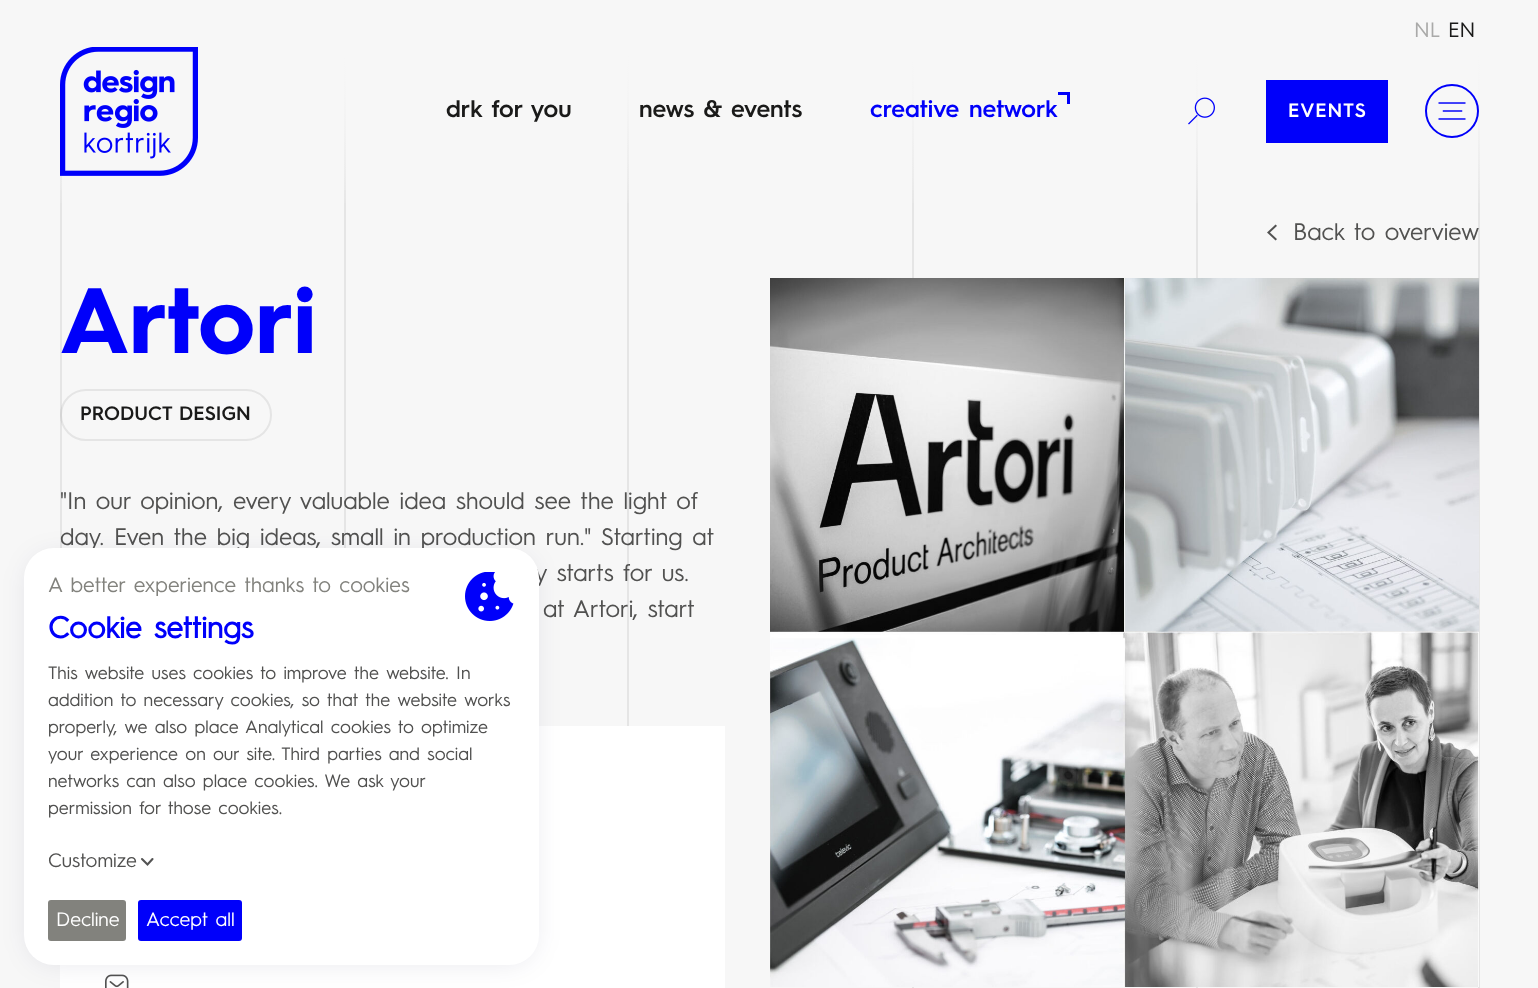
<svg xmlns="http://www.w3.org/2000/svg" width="1538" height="988">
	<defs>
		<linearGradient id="g1" gradientUnits="userSpaceOnUse" x1="770" y1="221" x2="770" y2="0"><stop offset="0" stop-color="#F7F7F7" stop-opacity="0" /><stop offset="1" stop-color="#F7F7F7" /></linearGradient>
		<linearGradient id="g2" gradientUnits="userSpaceOnUse" x1="770" y1="221" x2="770" y2="0"><stop offset="0" stop-color="#F7F7F7" stop-opacity="0" /><stop offset="0.75" stop-color="#F7F7F7" /></linearGradient>
	</defs>
	<rect width="100%" height="100%" fill="#F7F7F7" />
	<rect x="60" y="56" width="2" height="492" fill="#E5E5E5" />
	<rect x="344" y="56" width="2" height="492" fill="#E5E5E5" />
	<rect x="627" y="56" width="2" height="670" fill="#E5E5E5" />
	<rect x="912" y="56" width="2" height="932" fill="#E5E5E5" />
	<rect x="1478" y="56" width="2" height="932" fill="#E5E5E5" />
	<rect x="1196" y="56" width="2" height="932" fill="#E5E5E5" />
	<rect x="60" y="56" width="1420" height="134" fill="url(#g1)" />
	<rect x="60" y="56" width="1420" height="147" fill="url(#g2)" />
	<text x="1414" y="37" font-family="'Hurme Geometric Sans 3'" font-size="21" fill="#AAAAA9">NL</text>
	<text x="1448" y="37" font-family="'Hurme Geometric Sans 3'" font-size="21" fill="#1A1A19">EN</text>
	<image x="60" y="47" width="138" height="129" href="assets/img1.png" />
	<g font-family="'Hurme Geometric Sans 3'" font-size="24" font-weight="600" fill="#1A1A19">
		<text x="446" y="117">drk for you</text>
		<text x="639" y="117">news &amp; events</text>
	</g>
	<rect x="1058" y="92" width="12" height="3" fill="#0000FA" />
	<rect x="1067" y="92" width="3" height="12" fill="#0000FA" />
	<text x="870" y="117" font-family="'Hurme Geometric Sans 3'" font-size="24" font-weight="600" fill="#0000FA">creative network</text>
	<image x="1188" y="97" width="27" height="28" href="assets/img2.png" />
	<rect x="1266" y="80" width="122" height="63" fill="#0000FA" />
	<text x="1288" y="117" font-family="'Hurme Geometric Sans 3'" font-size="19.5" font-weight="600" letter-spacing="1" fill="#FFFFFF">EVENTS</text>
	<circle cx="1452" cy="111" r="26" fill="none" stroke="#0000FA" stroke-width="2" />
	<image x="1438" y="102" width="28" height="18" href="assets/img3.png" />
	<image x="1267" y="224" width="10" height="17" href="assets/img4.png" />
	<text x="1293" y="240" font-family="'Hurme Geometric Sans 3'" font-size="24" fill="#515150">Back to overview</text>
	<text x="60" y="353" font-family="'Hurme Geometric Sans 3'" font-size="93" font-weight="700" fill="#0000FA">Artori</text>
	<rect x="61" y="390" width="210" height="50" rx="25" fill="none" stroke="#1A1A19" stroke-opacity="0.08" stroke-width="2" />
	<text x="80" y="420" font-family="'Hurme Geometric Sans 3'" font-size="19.5" font-weight="600" fill="#1A1A19">PRODUCT DESIGN</text>
	<g font-family="'Hurme Geometric Sans 3'" font-size="24" fill="#515150">
		<text x="60" y="509">"In our opinion, every valuable idea should see the light of</text>
		<text x="60" y="545">day. Even the big ideas, small in production run." Starting at</text>
		<text x="535" y="581">y starts for us.</text>
		<text x="543" y="617">at Artori, start</text>
	</g>
	<rect x="60" y="726" width="665" height="262" fill="#FFFFFF" />
	<image x="105" y="974" width="24" height="14" href="assets/img5.png" />
	<image x="770" y="278" width="709" height="709" href="assets/img6.png" />
	<rect x="30" y="557" width="503" height="405" rx="24" fill="#01013F" fill-opacity="0.1" filter="blur(14px)" />
	<rect x="24" y="548" width="515" height="417" rx="30" fill="#FFFFFF" />
	<text x="48" y="592" font-family="'Hurme Geometric Sans 3'" font-size="21" fill="#82827D">A better experience thanks to cookies</text>
	<text x="48" y="638" font-family="'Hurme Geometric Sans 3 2'" font-size="30" font-weight="700" fill="#0000FA">Cookie settings</text>
	<image x="465" y="572" width="49" height="49" href="assets/img7.png" />
	<g font-family="'Hurme Geometric Sans 3'" font-size="18" fill="#515150">
		<text x="48" y="679">This website uses cookies to improve the website. In</text>
		<text x="48" y="706">addition to necessary cookies, so that the website works</text>
		<text x="48" y="733">properly, we also place Analytical cookies to optimize</text>
		<text x="48" y="760">your experience on our site. Third parties and social</text>
		<text x="48" y="787">networks can also place cookies. We ask your</text>
		<text x="48" y="814">permission for those cookies.</text>
	</g>
	<text x="48" y="867" font-family="'Hurme Geometric Sans 3'" font-size="19.5" fill="#515150">Customize</text>
	<path d="M142 859L147.5 864.5L152.5 859" fill="none" stroke="#535353" stroke-width="2.1" stroke-linecap="round" />
	<rect x="48" y="900" width="78" height="41" rx="3" fill="#82827D" />
	<text x="56" y="926" font-family="'Hurme Geometric Sans 3'" font-size="19.5" fill="#FFFFFF">Decline</text>
	<rect x="138" y="900" width="104" height="41" rx="3" fill="#0000FA" />
	<text x="146" y="926" font-family="'Hurme Geometric Sans 3'" font-size="19.5" fill="#FFFFFF">Accept all</text>
</svg>
